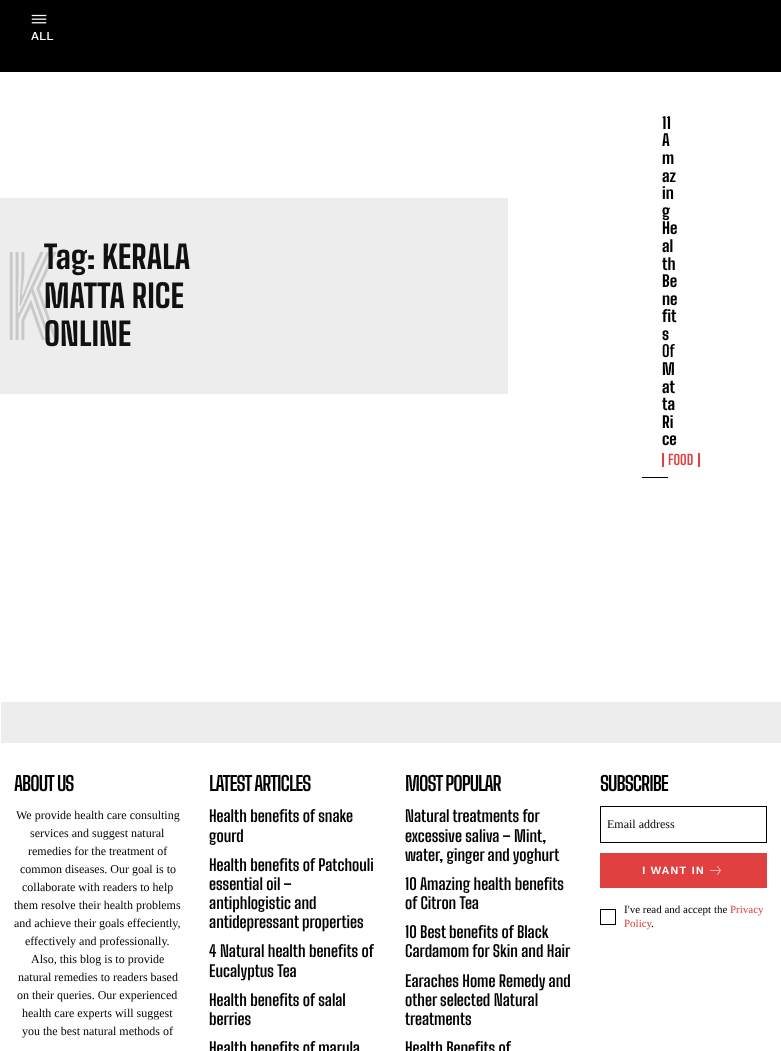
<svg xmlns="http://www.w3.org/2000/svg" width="781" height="1051">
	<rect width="100%" height="100%" fill="#FFFFFF" />
	<rect x="0" y="0" width="781" height="72" fill="#000000" />
	<image x="31" y="14" width="16" height="10" href="assets/img1.png" />
	<text x="31" y="40" font-family="Work Sans" font-size="12" font-weight="500" fill="#FFFFFF">ALL</text>
	<rect x="0" y="198" width="508" height="196" fill="#EDEDED" />
	<text x="4" y="340" font-family="Big Shoulders Inline Text" font-size="110" font-weight="800" fill="#C9C9C9">K</text>
	<g font-family="Big Shoulders Text" font-size="32" font-weight="800" fill="#111111">
		<text x="44" y="269">Tag: KERALA</text>
		<text x="44" y="308">MATTA RICE</text>
		<text x="44" y="346">ONLINE</text>
	</g>
	<rect x="642" y="477" width="26" height="1" fill="#000000" />
	<g font-family="Big Shoulders Text" font-size="16" font-weight="800" fill="#000000">
		<text x="662" y="129">11</text>
		<text x="662" y="146">A</text>
		<text x="662" y="164">m</text>
		<text x="662" y="182">az</text>
		<text x="662" y="199">in</text>
		<text x="662" y="217">g</text>
		<text x="662" y="234">He</text>
		<text x="662" y="252">al</text>
		<text x="662" y="270">th</text>
		<text x="662" y="287">Be</text>
		<text x="662" y="305">ne</text>
		<text x="662" y="322">fit</text>
		<text x="662" y="340">s</text>
	</g>
	<text x="662" y="357" font-family="Big Shoulders Text" font-size="16" font-weight="700" fill="#000000">Of</text>
	<g font-family="Big Shoulders Text" font-size="16" font-weight="800" fill="#000000">
		<text x="662" y="375">M</text>
		<text x="662" y="393">at</text>
		<text x="662" y="410">ta</text>
		<text x="662" y="428">Ri</text>
		<text x="662" y="445">ce</text>
	</g>
	<rect x="698" y="453" width="2" height="14" fill="#E04040" />
	<rect x="662" y="453" width="2" height="14" fill="#E04040" />
	<text x="668" y="465" font-family="Big Shoulders Text" font-size="14" font-weight="700" fill="#E04040">FOOD</text>
	<rect x="1" y="702" width="780" height="41" fill="#EDEDED" />
	<text x="14" y="791" font-family="Big Shoulders Text" font-size="20" font-weight="700" letter-spacing="-1" fill="#000000">ABOUT US</text>
	<g font-family="Liberation Serif" font-size="12" fill="#000000">
		<text x="16" y="819">We provide health care consulting</text>
		<text x="30" y="837">services and suggest natural</text>
		<text x="28" y="855">remedies for the treatment of</text>
		<text x="20" y="873">common diseases. Our goal is to</text>
		<text x="22" y="891">collaborate with readers to help</text>
		<text x="14" y="909">them resolve their health problems</text>
		<text x="14" y="927">and achieve their goals effeciently,</text>
		<text x="25" y="945">effectively and professionally.</text>
		<text x="31" y="963">Also, this blog is to provide</text>
		<text x="18" y="981">natural remedies to readers based</text>
		<text x="17" y="999">on their queries. Our experienced</text>
		<text x="22" y="1017">health care experts will suggest</text>
		<text x="22" y="1035">you the best natural methods of</text>
	</g>
	<text x="209" y="791" font-family="Big Shoulders Text" font-size="20" font-weight="700" letter-spacing="-1" fill="#000000">LATEST ARTICLES</text>
	<g font-family="Big Shoulders Text" font-size="16" font-weight="700" fill="#000000">
		<text x="209" y="822">Health benefits of snake</text>
		<text x="209" y="842">gourd</text>
		<text x="209" y="871">Health benefits of Patchouli</text>
		<text x="209" y="890">essential oil –</text>
		<text x="209" y="909">antiphlogistic and</text>
		<text x="209" y="928">antidepressant properties</text>
		<text x="209" y="957">4 Natural health benefits of</text>
		<text x="209" y="977">Eucalyptus Tea</text>
		<text x="209" y="1006">Health benefits of salal</text>
		<text x="209" y="1025">berries</text>
		<text x="209" y="1054">Health benefits of marula</text>
	</g>
	<text x="405" y="791" font-family="Big Shoulders Text" font-size="20" font-weight="700" letter-spacing="-1" fill="#000000">MOST POPULAR</text>
	<g font-family="Big Shoulders Text" font-size="16" font-weight="700" fill="#000000">
		<text x="405" y="822">Natural treatments for</text>
		<text x="405" y="842">excessive saliva – Mint,</text>
		<text x="405" y="861">water, ginger and yoghurt</text>
		<text x="405" y="890">10 Amazing health benefits</text>
		<text x="405" y="909">of Citron Tea</text>
		<text x="405" y="938">10 Best benefits of Black</text>
		<text x="405" y="957">Cardamom for Skin and Hair</text>
		<text x="405" y="987">Earaches Home Remedy and</text>
		<text x="405" y="1006">other selected Natural</text>
		<text x="405" y="1025">treatments</text>
		<text x="405" y="1054">Health Benefits of</text>
	</g>
	<text x="600" y="791" font-family="Big Shoulders Text" font-size="20" font-weight="700" letter-spacing="-1" fill="#000000">SUBSCRIBE</text>
	<rect x="600.5" y="806.5" width="166" height="36" fill="none" stroke="#000000" />
	<text x="607" y="828" font-family="Liberation Serif" font-size="12" fill="#000000">Email address</text>
	<rect x="600" y="853" width="167" height="35" fill="#E04040" />
	<text x="642" y="874" font-family="Work Sans" font-size="11" font-weight="600" letter-spacing="1" fill="#FFFFFF">I WANT IN</text>
	<image x="710" y="866" width="11" height="9" href="assets/img2.png" />
	<rect x="600.5" y="909.5" width="15" height="15" fill="none" stroke="#000000" />
	<text x="624" y="913" font-family="Liberation Serif" font-size="11" fill="#000000">I've read and accept the</text>
	<g font-family="Liberation Serif" font-size="11" fill="#E04040">
		<text x="730" y="913">Privacy</text>
		<text x="624" y="927">Policy</text>
	</g>
	<text x="651" y="927" font-family="Liberation Serif" font-size="11" fill="#000000">.</text>
</svg>
